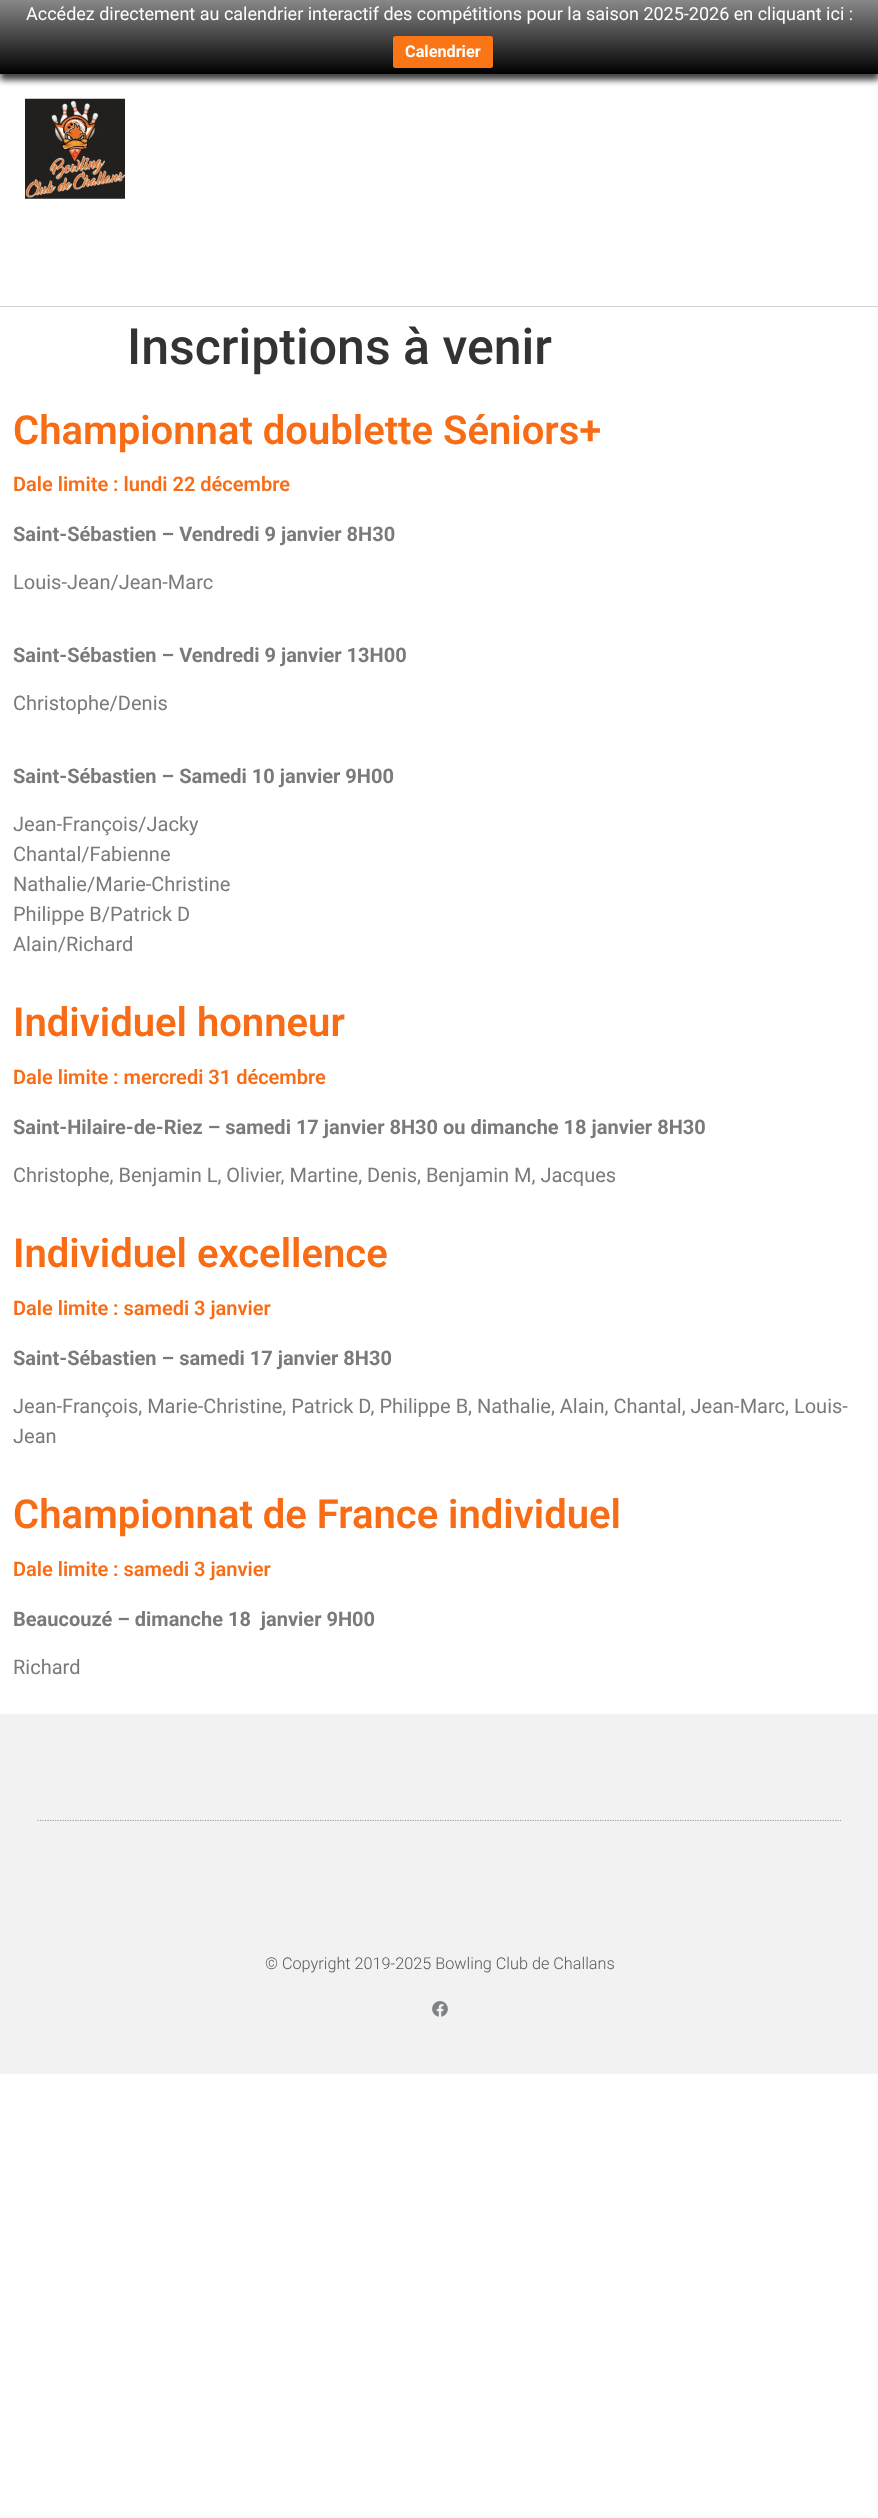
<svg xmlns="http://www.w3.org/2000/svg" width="878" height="2518">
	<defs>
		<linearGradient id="g1" gradientUnits="userSpaceOnUse" x1="439" y1="0" x2="439" y2="74"><stop offset="0" stop-color="#888888" /><stop offset="1" stop-color="#000000" /></linearGradient>
	</defs>
	<rect width="100%" height="100%" fill="#FFFFFF" />
	<rect x="0" y="6" width="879" height="74" fill="#000000" fill-opacity="0.75" filter="blur(3px)" />
	<rect x="0" y="0" width="878" height="74" fill="url(#g1)" />
	<text x="26" y="20" font-family="Roboto" font-size="18" fill="#FFFFFF">Accédez directement au calendrier interactif des compétitions pour la saison 2025-2026 en cliquant ici :</text>
	<rect x="393" y="38" width="100" height="31" rx="2.5" fill="#000000" fill-opacity="0.2" filter="blur(1px)" />
	<rect x="393" y="36" width="100" height="32" rx="2.5" fill="#F97515" />
	<text x="405" y="57" font-family="Roboto" font-size="16.25" font-weight="700" fill="#FFFFFF">Calendrier</text>
	<rect x="0" y="306" width="878" height="1" fill="#D3D3D3" />
	<image x="25" y="98" width="100" height="101" href="assets/img1.png" />
	<text x="127" y="364" font-family="Roboto" font-size="50" font-weight="500" fill="#333333">Inscriptions à venir</text>
	<text x="13" y="444" font-family="Roboto" font-size="40" font-weight="600" fill="#F86C15">Championnat doublette Séniors+</text>
	<text x="13" y="491" font-family="Roboto" font-size="20" font-weight="600" fill="#F86C15">Dale limite : lundi 22 décembre</text>
	<text x="13" y="541" font-family="Roboto" font-size="20" font-weight="700" fill="#7A7A7A">Saint-Sébastien – Vendredi 9 janvier 8H30</text>
	<text x="13" y="589" font-family="Roboto" font-size="20" fill="#7A7A7A">Louis-Jean/Jean-Marc</text>
	<text x="13" y="662" font-family="Roboto" font-size="20" font-weight="700" fill="#7A7A7A">Saint-Sébastien – Vendredi 9 janvier 13H00</text>
	<text x="13" y="710" font-family="Roboto" font-size="20" fill="#7A7A7A">Christophe/Denis</text>
	<text x="13" y="783" font-family="Roboto" font-size="20" font-weight="700" fill="#7A7A7A">Saint-Sébastien – Samedi 10 janvier 9H00</text>
	<g font-family="Roboto" font-size="20" fill="#7A7A7A">
		<text x="13" y="831">Jean-François/Jacky</text>
		<text x="13" y="861">Chantal/Fabienne</text>
		<text x="13" y="891">Nathalie/Marie-Christine</text>
		<text x="13" y="921">Philippe B/Patrick D</text>
		<text x="13" y="951">Alain/Richard</text>
	</g>
	<text x="13" y="1036" font-family="Roboto" font-size="40" font-weight="600" fill="#F86C15">Individuel honneur</text>
	<text x="13" y="1084" font-family="Roboto" font-size="20" font-weight="600" fill="#F86C15">Dale limite : mercredi 31 décembre</text>
	<text x="13" y="1134" font-family="Roboto" font-size="20" font-weight="700" fill="#7A7A7A">Saint-Hilaire-de-Riez – samedi 17 janvier 8H30 ou dimanche 18 janvier 8H30</text>
	<text x="13" y="1182" font-family="Roboto" font-size="20" fill="#7A7A7A">Christophe, Benjamin L, Olivier, Martine, Denis, Benjamin M, Jacques</text>
	<text x="13" y="1267" font-family="Roboto" font-size="40" font-weight="600" fill="#F86C15">Individuel excellence</text>
	<text x="13" y="1315" font-family="Roboto" font-size="20" font-weight="600" fill="#F86C15">Dale limite : samedi 3 janvier</text>
	<text x="13" y="1365" font-family="Roboto" font-size="20" font-weight="700" fill="#7A7A7A">Saint-Sébastien – samedi 17 janvier 8H30</text>
	<g font-family="Roboto" font-size="20" fill="#7A7A7A">
		<text x="13" y="1413">Jean-François, Marie-Christine, Patrick D, Philippe B, Nathalie, Alain, Chantal, Jean-Marc, Louis-</text>
		<text x="13" y="1443">Jean</text>
	</g>
	<text x="13" y="1528" font-family="Roboto" font-size="40" font-weight="600" fill="#F86C15">Championnat de France individuel</text>
	<text x="13" y="1576" font-family="Roboto" font-size="20" font-weight="600" fill="#F86C15">Dale limite : samedi 3 janvier</text>
	<text x="13" y="1626" font-family="Roboto" font-size="20" font-weight="700" fill="#7A7A7A" xml:space="preserve">Beaucouzé – dimanche 18  janvier 9H00</text>
	<text x="13" y="1674" font-family="Roboto" font-size="20" fill="#7A7A7A">Richard</text>
	<rect x="0" y="1714" width="878" height="360" fill="#F2F2F2" />
	<path d="M37.5 1820.5H841" fill="none" stroke="#9B9B9B" stroke-width="1.2" stroke-dasharray="1.25 1.25" />
	<text x="265" y="1969" font-family="Roboto" font-size="16.25" font-weight="300" fill="#54595F">© Copyright 2019-2025 Bowling Club de Challans</text>
	<image x="432" y="2001" width="16" height="16" href="assets/img2.png" />
</svg>
